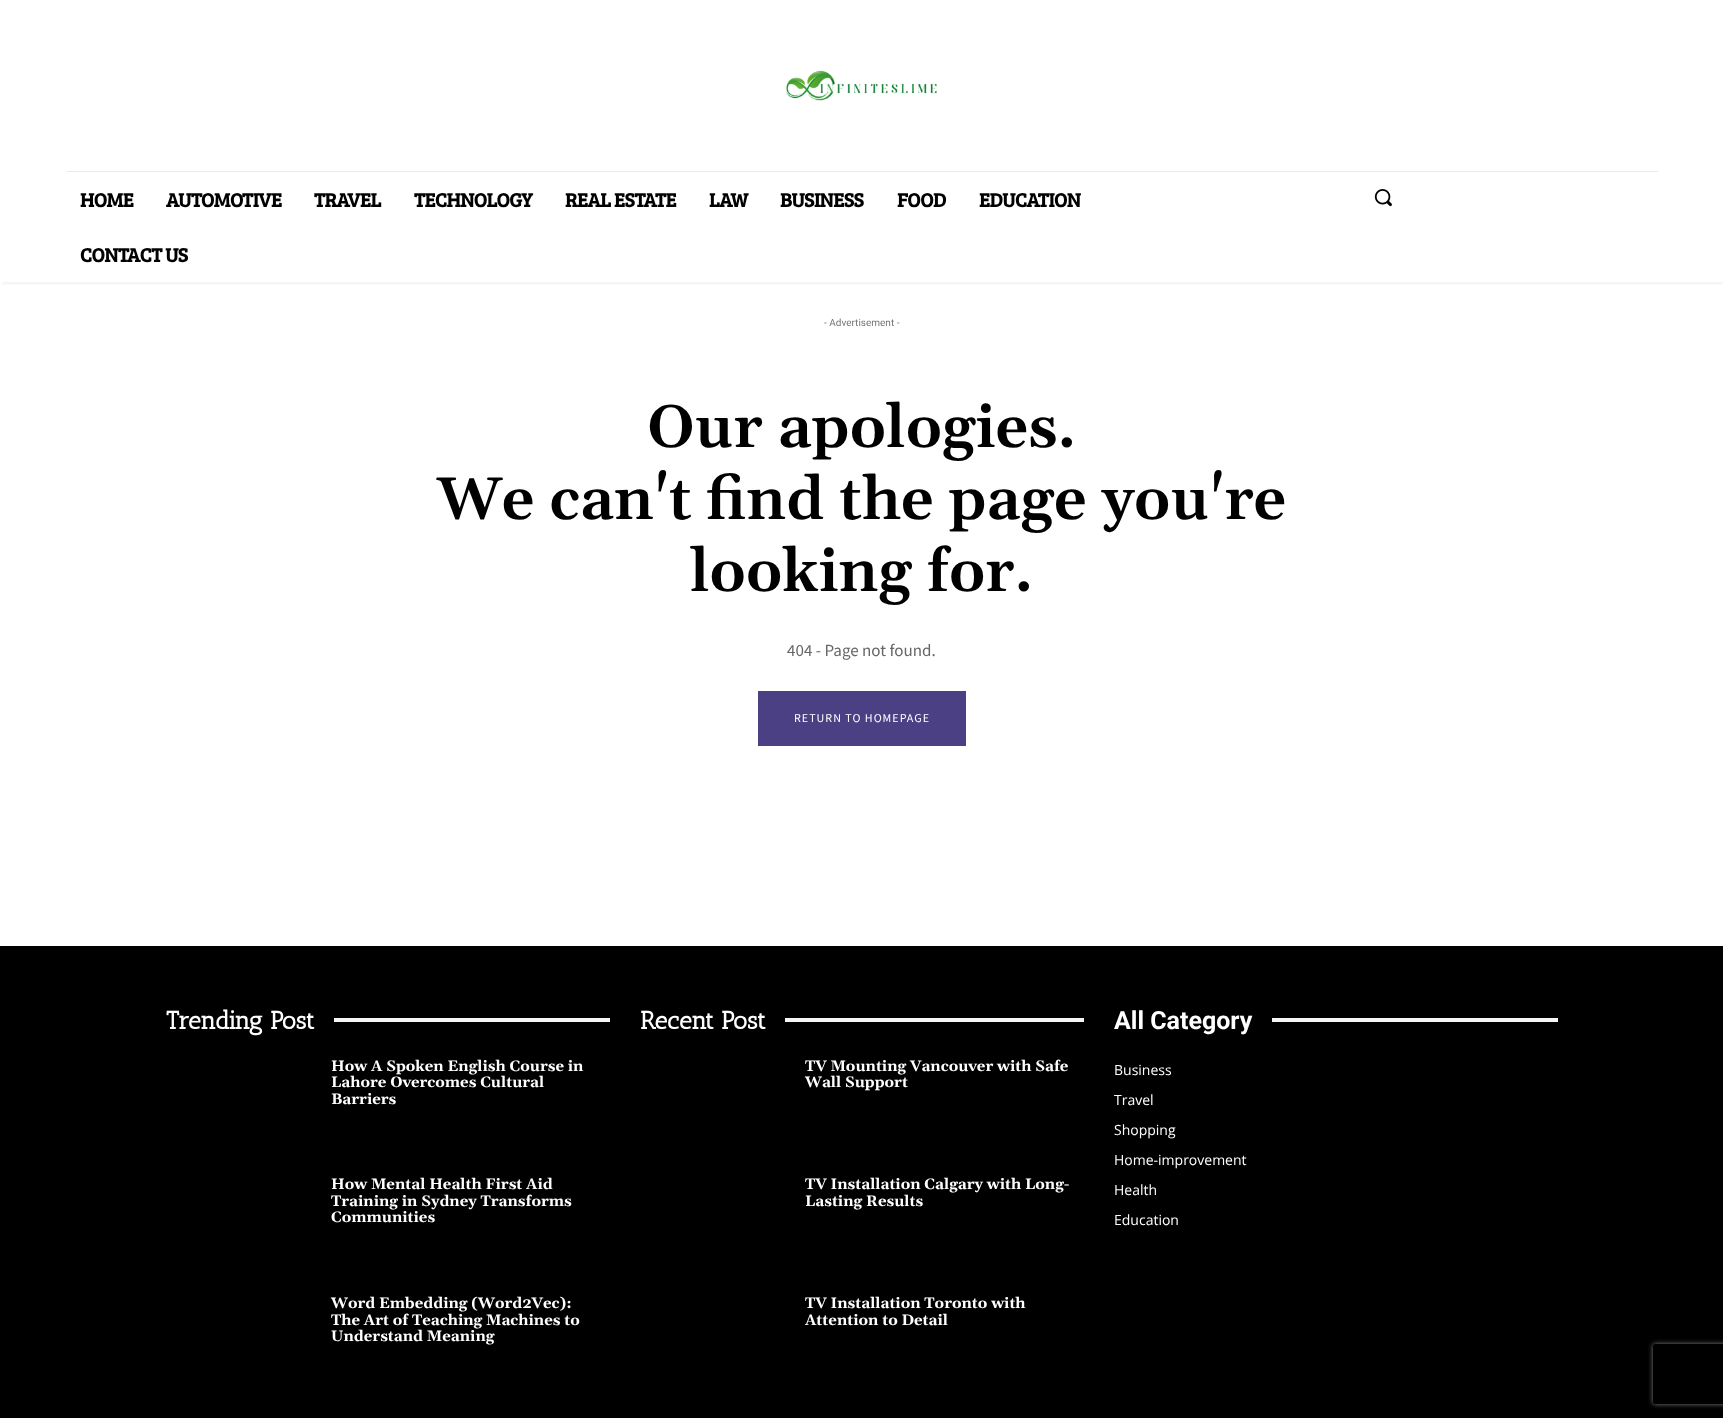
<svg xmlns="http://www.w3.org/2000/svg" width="1723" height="1418">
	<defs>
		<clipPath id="clip1"><rect x="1" y="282" width="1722" height="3" /></clipPath>
		<clipPath id="clip2"><path d="M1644 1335H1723V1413H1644ZM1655 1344H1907C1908 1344 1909 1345 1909 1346V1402C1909 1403 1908 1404 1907 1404H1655C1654 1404 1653 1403 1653 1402V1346C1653 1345 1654 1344 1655 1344Z" clip-rule="evenodd" /></clipPath>
	</defs>
	<rect width="100%" height="100%" fill="#FFFFFF" />
	<image x="786" y="70" width="151" height="31" href="assets/img1.png" />
	<rect x="66" y="171" width="1592" height="1" fill="#EAEAEA" />
	<g clip-path="url(#clip1)">
		<rect x="1" y="143" width="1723" height="141" fill="#000000" fill-opacity="0.06" filter="blur(2px)" />
	</g>
	<g font-family="Bree Serif" font-size="20" font-weight="700" letter-spacing="-0.5" fill="#000000">
		<text x="80" y="207">HOME</text>
		<text x="166" y="207">AUTOMOTIVE</text>
		<text x="314" y="207">TRAVEL</text>
		<text x="414" y="207">TECHNOLOGY</text>
		<text x="565" y="207">REAL ESTATE</text>
		<text x="709" y="207">LAW</text>
		<text x="780" y="207">BUSINESS</text>
		<text x="897" y="207">FOOD</text>
		<text x="979" y="207">EDUCATION</text>
		<text x="80" y="262">CONTACT US</text>
	</g>
	<image x="1374" y="189" width="18" height="18" href="assets/img2.png" />
	<text x="824" y="326" font-family="Roboto" font-size="10" fill="#767676">- Advertisement -</text>
	<g font-family="Gelasio" font-size="60" font-weight="600" fill="#000000">
		<text x="647" y="447">Our apologies.</text>
		<text x="437" y="519">We can't find the page you're</text>
		<text x="690" y="591">looking for.</text>
	</g>
	<text x="787" y="656" font-family="Source Sans Pro" font-size="17" fill="#666666">404 - Page not found.</text>
	<rect x="758" y="691" width="208" height="55" fill="#4C4084" />
	<text x="794" y="722" font-family="Source Sans Pro" font-size="12" letter-spacing="1" fill="#FFFFFF">RETURN TO HOMEPAGE</text>
	<rect x="0" y="946" width="1723" height="472" fill="#000000" />
	<text x="166" y="1029" font-family="Antic Slab" font-size="25" font-weight="700" fill="#FFFFFF">Trending Post</text>
	<rect x="334" y="1018" width="276" height="4" fill="#F5F5F5" />
	<g font-family="Gelasio" font-size="15" font-weight="700" fill="#FFFFFF">
		<text x="331" y="1071">How A Spoken English Course in</text>
		<text x="331" y="1087">Lahore Overcomes Cultural</text>
		<text x="331" y="1104">Barriers</text>
		<text x="331" y="1189">How Mental Health First Aid</text>
		<text x="331" y="1206">Training in Sydney Transforms</text>
		<text x="331" y="1222">Communities</text>
		<text x="331" y="1308">Word Embedding (Word2Vec):</text>
		<text x="331" y="1325">The Art of Teaching Machines to</text>
		<text x="331" y="1341">Understand Meaning</text>
	</g>
	<text x="640" y="1029" font-family="Antic Slab" font-size="25" font-weight="700" fill="#FFFFFF">Recent Post</text>
	<rect x="785" y="1018" width="299" height="4" fill="#F5F5F5" />
	<g font-family="Gelasio" font-size="15" font-weight="700" fill="#FFFFFF">
		<text x="805" y="1071">TV Mounting Vancouver with Safe</text>
		<text x="805" y="1087">Wall Support</text>
		<text x="805" y="1189">TV Installation Calgary with Long-</text>
		<text x="805" y="1206">Lasting Results</text>
		<text x="805" y="1308">TV Installation Toronto with</text>
		<text x="805" y="1325">Attention to Detail</text>
	</g>
	<text x="1114" y="1029" font-family="Roboto" font-size="25" font-weight="700" fill="#FFFFFF">All Category</text>
	<rect x="1272" y="1018" width="286" height="4" fill="#F5F5F5" />
	<g font-family="Open Sans" font-size="14" fill="#FFFFFF">
		<text x="1114" y="1075">Business</text>
		<text x="1114" y="1105">Travel</text>
		<text x="1114" y="1135">Shopping</text>
		<text x="1114" y="1165">Home-improvement</text>
		<text x="1114" y="1195">Health</text>
		<text x="1114" y="1225">Education</text>
	</g>
	<g clip-path="url(#clip2)">
		<rect x="1653" y="1344" width="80" height="60" rx="2" fill="#808080" filter="blur(2.5px)" />
	</g>
</svg>
